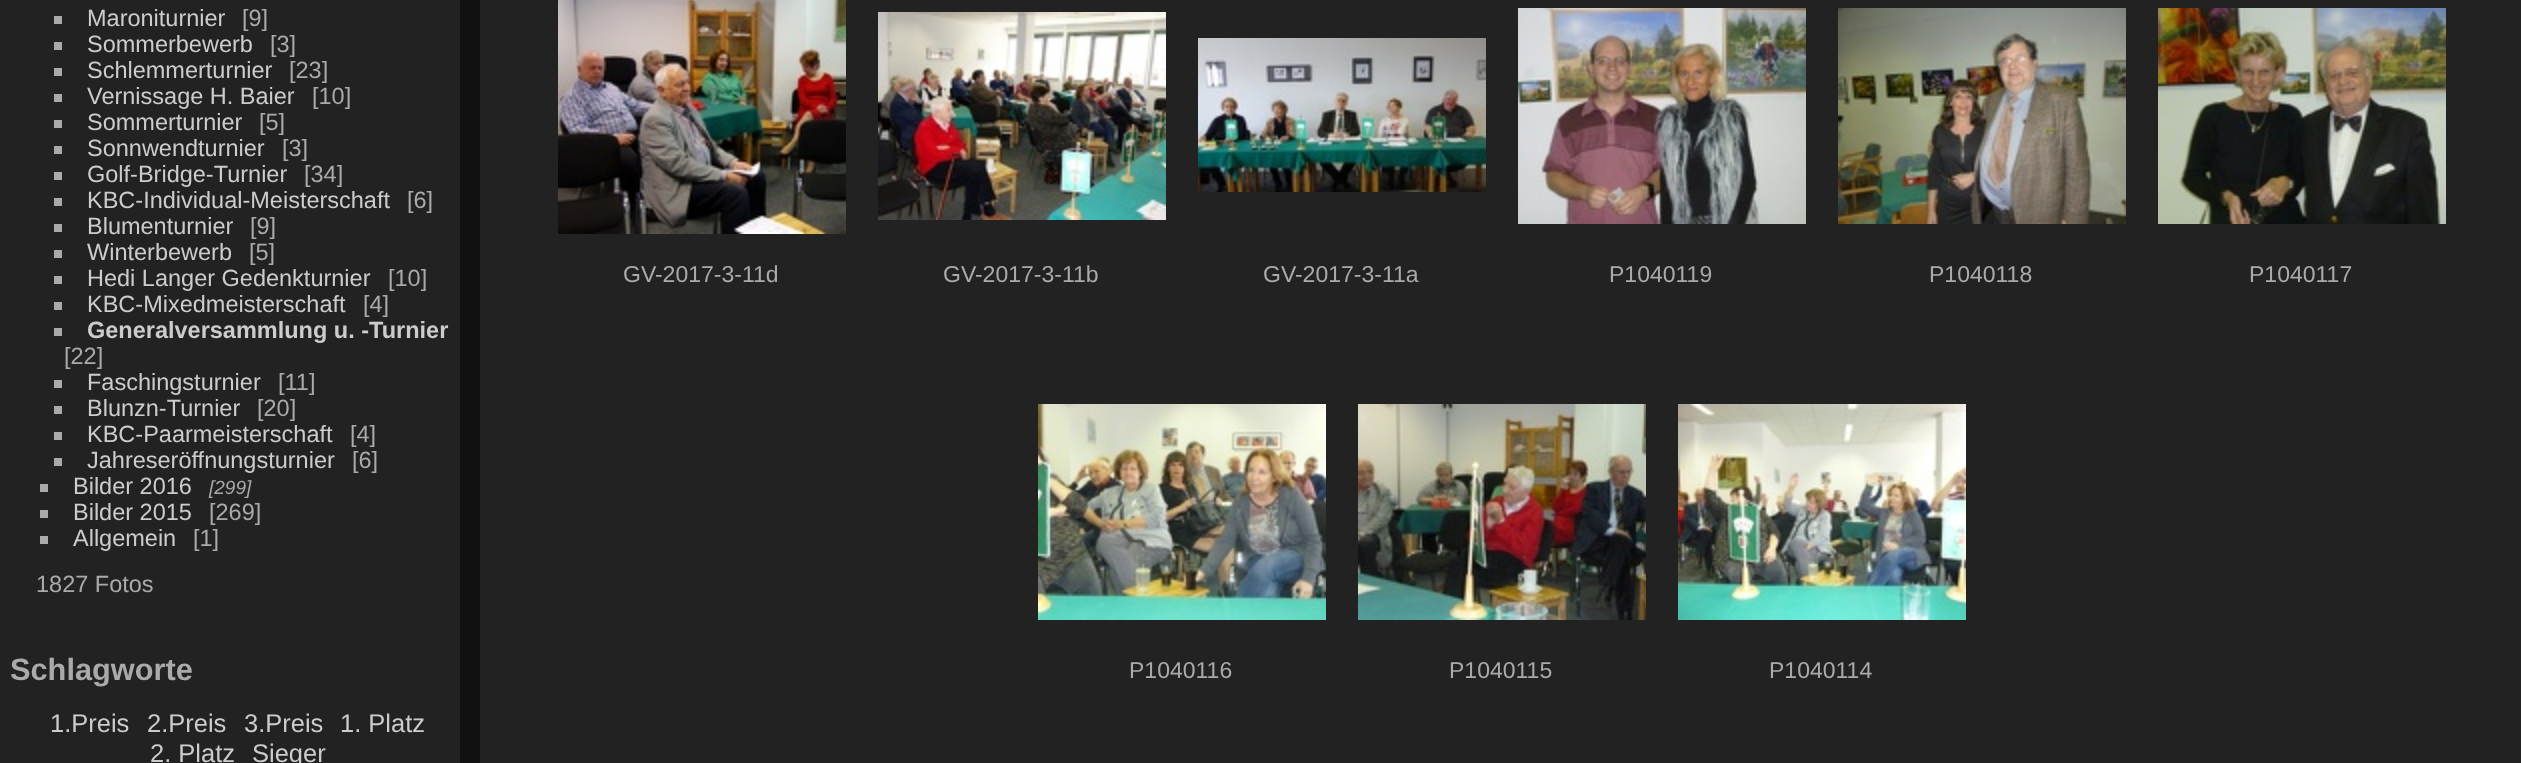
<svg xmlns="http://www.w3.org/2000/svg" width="2521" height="763">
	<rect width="100%" height="100%" fill="#111111" />
	<rect x="0" y="0" width="460" height="763" fill="#222222" />
	<rect x="54" y="16" width="8" height="8" fill="#AAAAAA" />
	<text x="87" y="26" font-family="Liberation Sans" font-size="23.5" fill="#CCCCCC">Maroniturnier</text>
	<text x="242" y="26" font-family="Liberation Sans" font-size="23.5" fill="#AAAAAA">[9]</text>
	<rect x="54" y="42" width="8" height="8" fill="#AAAAAA" />
	<text x="87" y="52" font-family="Liberation Sans" font-size="23.5" fill="#CCCCCC">Sommerbewerb</text>
	<text x="270" y="52" font-family="Liberation Sans" font-size="23.5" fill="#AAAAAA">[3]</text>
	<rect x="54" y="68" width="8" height="8" fill="#AAAAAA" />
	<text x="87" y="78" font-family="Liberation Sans" font-size="23.5" fill="#CCCCCC">Schlemmerturnier</text>
	<text x="289" y="78" font-family="Liberation Sans" font-size="23.5" fill="#AAAAAA">[23]</text>
	<rect x="54" y="94" width="8" height="8" fill="#AAAAAA" />
	<text x="87" y="104" font-family="Liberation Sans" font-size="23.5" fill="#CCCCCC">Vernissage H. Baier</text>
	<text x="312" y="104" font-family="Liberation Sans" font-size="23.5" fill="#AAAAAA">[10]</text>
	<rect x="54" y="120" width="8" height="8" fill="#AAAAAA" />
	<text x="87" y="130" font-family="Liberation Sans" font-size="23.5" fill="#CCCCCC">Sommerturnier</text>
	<text x="259" y="130" font-family="Liberation Sans" font-size="23.5" fill="#AAAAAA">[5]</text>
	<rect x="54" y="146" width="8" height="8" fill="#AAAAAA" />
	<text x="87" y="156" font-family="Liberation Sans" font-size="23.5" fill="#CCCCCC">Sonnwendturnier</text>
	<text x="282" y="156" font-family="Liberation Sans" font-size="23.5" fill="#AAAAAA">[3]</text>
	<rect x="54" y="172" width="8" height="8" fill="#AAAAAA" />
	<text x="87" y="182" font-family="Liberation Sans" font-size="23.5" fill="#CCCCCC">Golf-Bridge-Turnier</text>
	<text x="304" y="182" font-family="Liberation Sans" font-size="23.5" fill="#AAAAAA">[34]</text>
	<rect x="54" y="198" width="8" height="8" fill="#AAAAAA" />
	<text x="87" y="208" font-family="Liberation Sans" font-size="23.5" fill="#CCCCCC">KBC-Individual-Meisterschaft</text>
	<text x="407" y="208" font-family="Liberation Sans" font-size="23.5" fill="#AAAAAA">[6]</text>
	<rect x="54" y="224" width="8" height="8" fill="#AAAAAA" />
	<text x="87" y="234" font-family="Liberation Sans" font-size="23.5" fill="#CCCCCC">Blumenturnier</text>
	<text x="250" y="234" font-family="Liberation Sans" font-size="23.5" fill="#AAAAAA">[9]</text>
	<rect x="54" y="250" width="8" height="8" fill="#AAAAAA" />
	<text x="87" y="260" font-family="Liberation Sans" font-size="23.5" fill="#CCCCCC">Winterbewerb</text>
	<text x="249" y="260" font-family="Liberation Sans" font-size="23.5" fill="#AAAAAA">[5]</text>
	<rect x="54" y="276" width="8" height="8" fill="#AAAAAA" />
	<text x="87" y="286" font-family="Liberation Sans" font-size="23.5" fill="#CCCCCC">Hedi Langer Gedenkturnier</text>
	<text x="388" y="286" font-family="Liberation Sans" font-size="23.5" fill="#AAAAAA">[10]</text>
	<rect x="54" y="302" width="8" height="8" fill="#AAAAAA" />
	<text x="87" y="312" font-family="Liberation Sans" font-size="23.5" fill="#CCCCCC">KBC-Mixedmeisterschaft</text>
	<text x="363" y="312" font-family="Liberation Sans" font-size="23.5" fill="#AAAAAA">[4]</text>
	<rect x="54" y="328" width="8" height="8" fill="#AAAAAA" />
	<text x="87" y="338" font-family="Liberation Sans" font-size="23.5" font-weight="700" fill="#CCCCCC">Generalversammlung u. -Turnier</text>
	<text x="64" y="364" font-family="Liberation Sans" font-size="23.5" fill="#AAAAAA">[22]</text>
	<rect x="54" y="380" width="8" height="8" fill="#AAAAAA" />
	<text x="87" y="390" font-family="Liberation Sans" font-size="23.5" fill="#CCCCCC">Faschingsturnier</text>
	<text x="278" y="390" font-family="Liberation Sans" font-size="23.5" fill="#AAAAAA">[11]</text>
	<rect x="54" y="406" width="8" height="8" fill="#AAAAAA" />
	<text x="87" y="416" font-family="Liberation Sans" font-size="23.5" fill="#CCCCCC">Blunzn-Turnier</text>
	<text x="257" y="416" font-family="Liberation Sans" font-size="23.5" fill="#AAAAAA">[20]</text>
	<rect x="54" y="432" width="8" height="8" fill="#AAAAAA" />
	<text x="87" y="442" font-family="Liberation Sans" font-size="23.5" fill="#CCCCCC">KBC-Paarmeisterschaft</text>
	<text x="350" y="442" font-family="Liberation Sans" font-size="23.5" fill="#AAAAAA">[4]</text>
	<rect x="54" y="458" width="8" height="8" fill="#AAAAAA" />
	<text x="87" y="468" font-family="Liberation Sans" font-size="23.5" fill="#CCCCCC">Jahreseröffnungsturnier</text>
	<text x="352" y="468" font-family="Liberation Sans" font-size="23.5" fill="#AAAAAA">[6]</text>
	<rect x="40" y="484" width="8" height="8" fill="#AAAAAA" />
	<text x="73" y="494" font-family="Liberation Sans" font-size="23.5" fill="#CCCCCC">Bilder 2016</text>
	<text x="209" y="494" font-family="Liberation Sans" font-size="19" font-style="italic" fill="#AAAAAA">[299]</text>
	<rect x="40" y="510" width="8" height="8" fill="#AAAAAA" />
	<text x="73" y="520" font-family="Liberation Sans" font-size="23.5" fill="#CCCCCC">Bilder 2015</text>
	<text x="209" y="520" font-family="Liberation Sans" font-size="23.5" fill="#AAAAAA">[269]</text>
	<rect x="40" y="536" width="8" height="8" fill="#AAAAAA" />
	<text x="73" y="546" font-family="Liberation Sans" font-size="23.5" fill="#CCCCCC">Allgemein</text>
	<g font-family="Liberation Sans" font-size="23.5" fill="#AAAAAA">
		<text x="193" y="546">[1]</text>
		<text x="36" y="592">1827 Fotos</text>
	</g>
	<text x="10" y="680" font-family="Liberation Sans" font-size="30.75" font-weight="700" fill="#AAAAAA">Schlagworte</text>
	<g font-family="Liberation Sans" font-size="25.5" fill="#CCCCCC">
		<text x="50" y="732">1.Preis</text>
		<text x="147" y="732">2.Preis</text>
		<text x="244" y="732">3.Preis</text>
		<text x="340" y="732">1. Platz</text>
		<text x="150" y="762">2. Platz</text>
		<text x="252" y="762">Sieger</text>
	</g>
	<rect x="480" y="0" width="2041" height="763" fill="#222222" />
	<image x="558" y="0" width="288" height="234" href="assets/img1.png" />
	<text x="623" y="282" font-family="Liberation Sans" font-size="23" fill="#AAAAAA">GV-2017-3-11d</text>
	<image x="878" y="12" width="288" height="208" href="assets/img2.png" />
	<text x="943" y="282" font-family="Liberation Sans" font-size="23" fill="#AAAAAA">GV-2017-3-11b</text>
	<image x="1198" y="38" width="288" height="154" href="assets/img3.png" />
	<text x="1263" y="282" font-family="Liberation Sans" font-size="23" fill="#AAAAAA">GV-2017-3-11a</text>
	<image x="1518" y="8" width="288" height="216" href="assets/img4.png" />
	<text x="1609" y="282" font-family="Liberation Sans" font-size="23" fill="#AAAAAA">P1040119</text>
	<image x="1838" y="8" width="288" height="216" href="assets/img5.png" />
	<text x="1929" y="282" font-family="Liberation Sans" font-size="23" fill="#AAAAAA">P1040118</text>
	<image x="2158" y="8" width="288" height="216" href="assets/img6.png" />
	<text x="2249" y="282" font-family="Liberation Sans" font-size="23" fill="#AAAAAA">P1040117</text>
	<image x="1038" y="404" width="288" height="216" href="assets/img7.png" />
	<text x="1129" y="678" font-family="Liberation Sans" font-size="23" fill="#AAAAAA">P1040116</text>
	<image x="1358" y="404" width="288" height="216" href="assets/img8.png" />
	<text x="1449" y="678" font-family="Liberation Sans" font-size="23" fill="#AAAAAA">P1040115</text>
	<image x="1678" y="404" width="288" height="216" href="assets/img9.png" />
	<text x="1769" y="678" font-family="Liberation Sans" font-size="23" fill="#AAAAAA">P1040114</text>
</svg>
